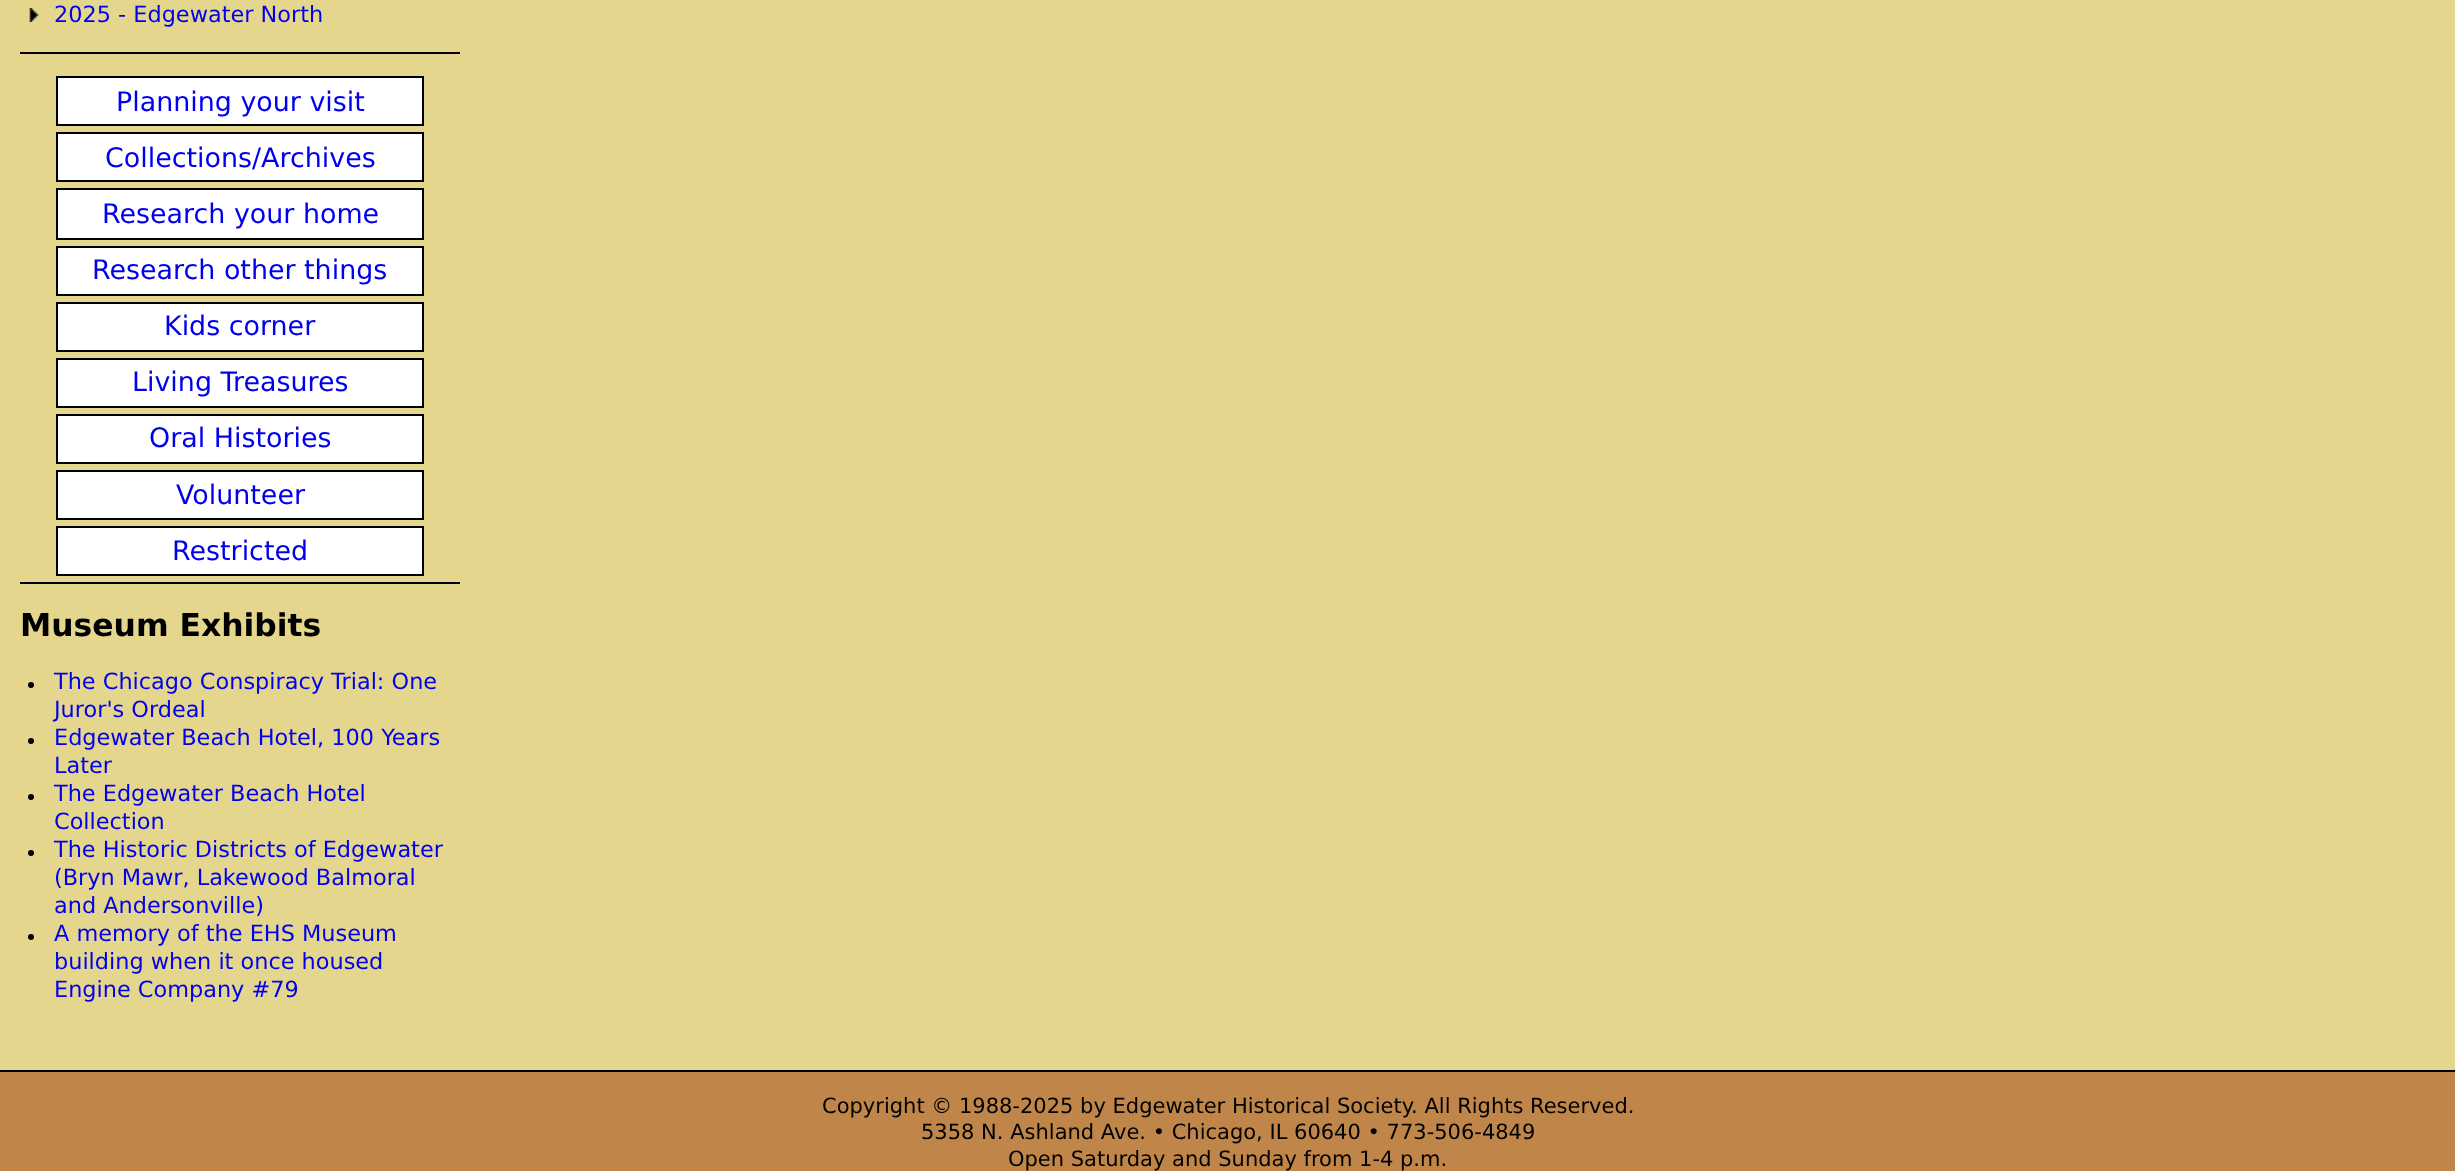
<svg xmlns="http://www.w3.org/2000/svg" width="2455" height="1171">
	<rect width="100%" height="100%" fill="#C08548" />
	<rect x="0" y="0" width="2455" height="1070" fill="#E4D68C" />
	<rect x="20" y="52" width="440" height="2" fill="#000000" />
	<image x="29" y="8" width="10" height="14" href="assets/img1.png" />
	<text x="54" y="22" font-family="DejaVu Sans" font-size="22.4" fill="#0000EE">2025 - Edgewater North</text>
	<rect x="20" y="582" width="440" height="2" fill="#000000" />
	<rect x="57" y="77" width="366" height="48" fill="#FFFFFF" stroke="#000000" stroke-width="2" />
	<text x="116" y="111" font-family="DejaVu Sans" font-size="26.9" fill="#0000EE">Planning your visit</text>
	<rect x="57" y="133" width="366" height="48" fill="#FFFFFF" stroke="#000000" stroke-width="2" />
	<text x="105" y="167" font-family="DejaVu Sans" font-size="26.9" fill="#0000EE">Collections/Archives</text>
	<rect x="57" y="189" width="366" height="50" fill="#FFFFFF" stroke="#000000" stroke-width="2" />
	<text x="102" y="223" font-family="DejaVu Sans" font-size="26.9" fill="#0000EE">Research your home</text>
	<rect x="57" y="247" width="366" height="48" fill="#FFFFFF" stroke="#000000" stroke-width="2" />
	<text x="92" y="279" font-family="DejaVu Sans" font-size="26.9" fill="#0000EE">Research other things</text>
	<rect x="57" y="303" width="366" height="48" fill="#FFFFFF" stroke="#000000" stroke-width="2" />
	<text x="164" y="335" font-family="DejaVu Sans" font-size="26.9" fill="#0000EE">Kids corner</text>
	<rect x="57" y="359" width="366" height="48" fill="#FFFFFF" stroke="#000000" stroke-width="2" />
	<text x="132" y="391" font-family="DejaVu Sans" font-size="26.9" fill="#0000EE">Living Treasures</text>
	<rect x="57" y="415" width="366" height="48" fill="#FFFFFF" stroke="#000000" stroke-width="2" />
	<text x="149" y="447" font-family="DejaVu Sans" font-size="26.9" fill="#0000EE">Oral Histories</text>
	<rect x="57" y="471" width="366" height="48" fill="#FFFFFF" stroke="#000000" stroke-width="2" />
	<text x="176" y="504" font-family="DejaVu Sans" font-size="26.9" fill="#0000EE">Volunteer</text>
	<rect x="57" y="527" width="366" height="48" fill="#FFFFFF" stroke="#000000" stroke-width="2" />
	<text x="172" y="560" font-family="DejaVu Sans" font-size="26.9" fill="#0000EE">Restricted</text>
	<text x="20" y="636" font-family="DejaVu Sans" font-size="31.4" font-weight="700" fill="#000000">Museum Exhibits</text>
	<circle cx="31" cy="685" r="3" fill="#000000" />
	<g font-family="DejaVu Sans" font-size="22.4" fill="#0000EE">
		<text x="54" y="689">The Chicago Conspiracy Trial: One</text>
		<text x="54" y="717">Juror's Ordeal</text>
	</g>
	<circle cx="31" cy="741" r="3" fill="#000000" />
	<g font-family="DejaVu Sans" font-size="22.4" fill="#0000EE">
		<text x="54" y="745">Edgewater Beach Hotel, 100 Years</text>
		<text x="54" y="773">Later</text>
	</g>
	<circle cx="31" cy="797" r="3" fill="#000000" />
	<g font-family="DejaVu Sans" font-size="22.4" fill="#0000EE">
		<text x="54" y="801">The Edgewater Beach Hotel</text>
		<text x="54" y="829">Collection</text>
	</g>
	<circle cx="31" cy="853" r="3" fill="#000000" />
	<g font-family="DejaVu Sans" font-size="22.4" fill="#0000EE">
		<text x="54" y="857">The Historic Districts of Edgewater</text>
		<text x="54" y="885">(Bryn Mawr, Lakewood Balmoral</text>
		<text x="54" y="913">and Andersonville)</text>
	</g>
	<circle cx="31" cy="937" r="3" fill="#000000" />
	<g font-family="DejaVu Sans" font-size="22.4" fill="#0000EE">
		<text x="54" y="941">A memory of the EHS Museum</text>
		<text x="54" y="969">building when it once housed</text>
		<text x="54" y="997">Engine Company #79</text>
	</g>
	<rect x="0" y="1070" width="2455" height="2" fill="#000000" />
	<g font-family="DejaVu Sans" font-size="21" fill="#000000">
		<text x="822" y="1113">Copyright © 1988-2025 by Edgewater Historical Society. All Rights Reserved.</text>
		<text x="921" y="1139">5358 N. Ashland Ave. • Chicago, IL 60640 • 773‑506‑4849</text>
		<text x="1008" y="1166">Open Saturday and Sunday from 1-4 p.m.</text>
	</g>
</svg>
